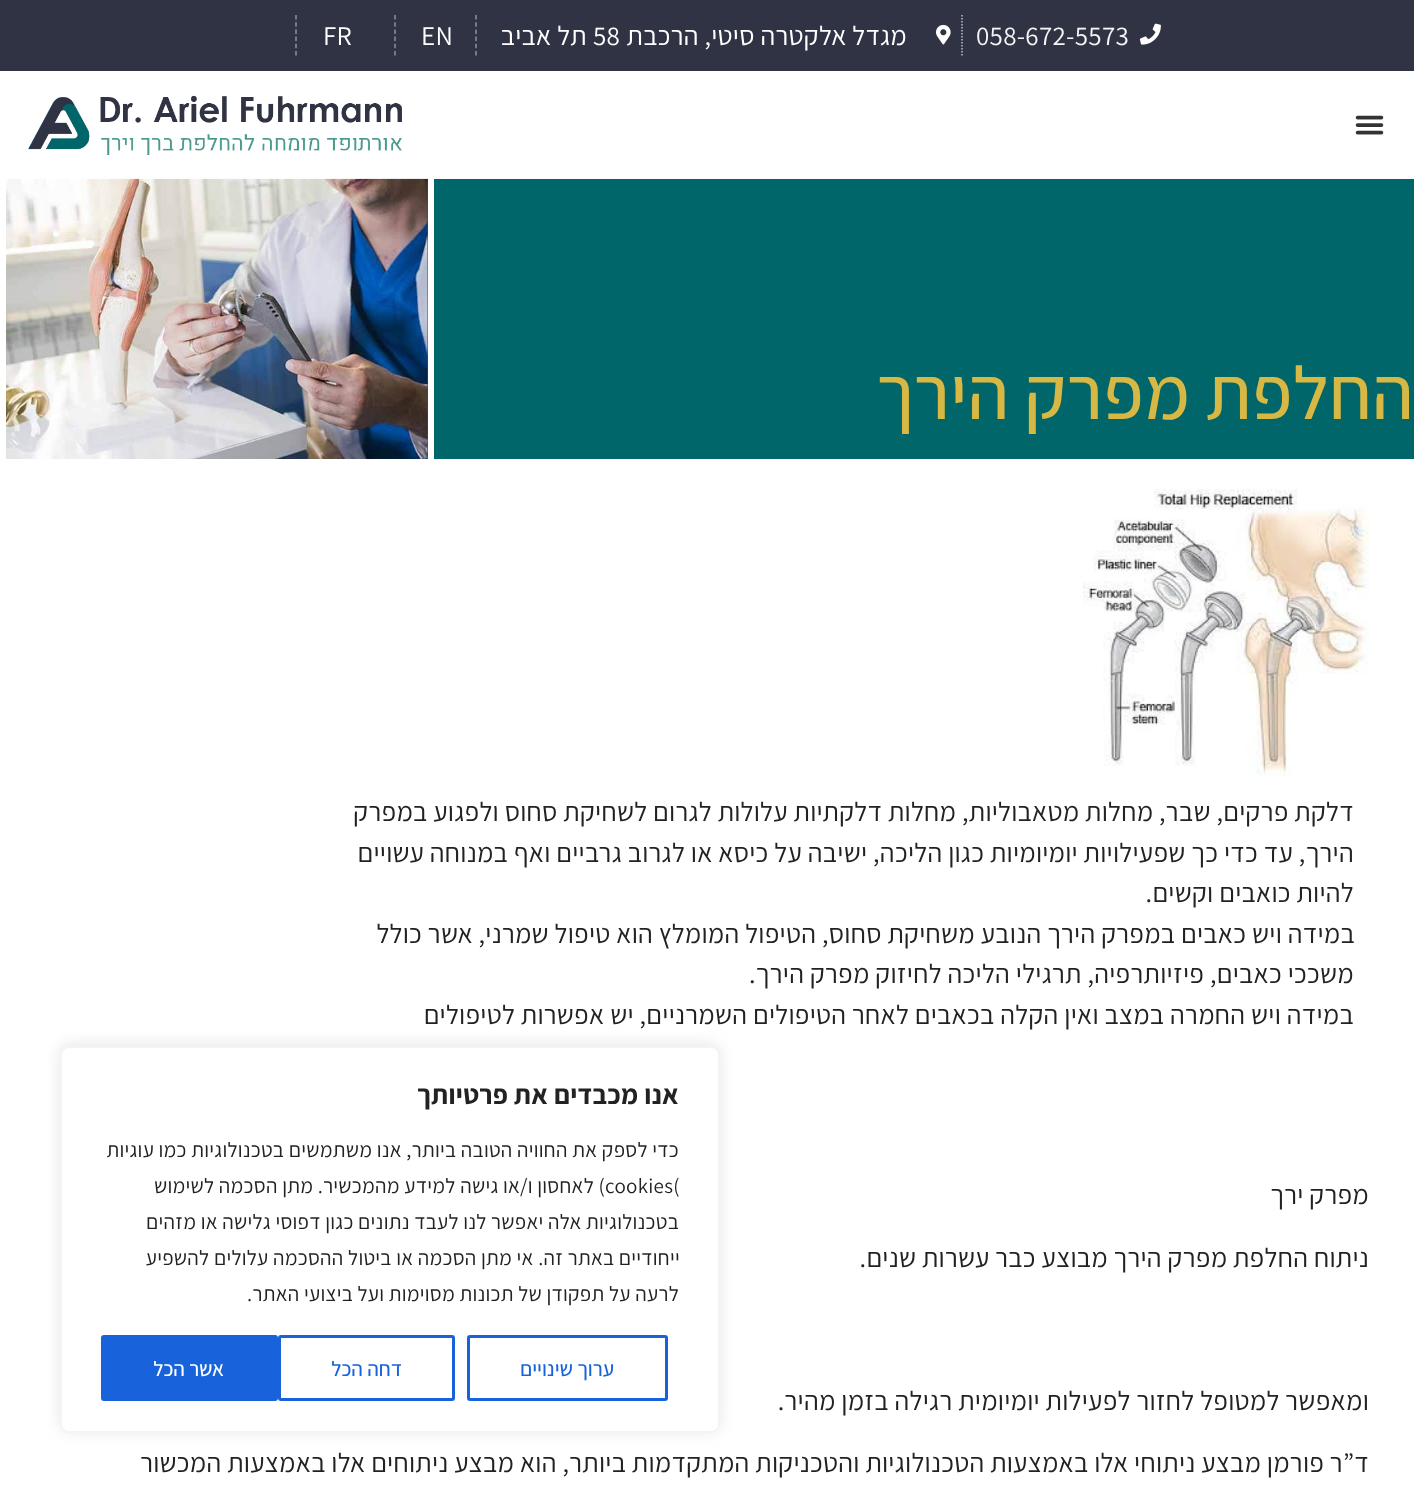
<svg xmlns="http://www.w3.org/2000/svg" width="1414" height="1492">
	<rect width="100%" height="100%" fill="#FFFFFF" />
	<rect x="0" y="0" width="1414" height="71" fill="#303343" />
	<image x="1139" y="23" width="22" height="22" href="assets/img1.png" />
	<path d="M962 15V55.5" fill="none" stroke="#BDBEC3" stroke-width="1.5" stroke-dasharray="1.5 1.5" />
	<text x="976" y="45" font-family="Assistant" font-size="27" letter-spacing="0.3" fill="#F5F5F5">058-672-5573</text>
	<image x="936" y="24" width="15" height="21" href="assets/img2.png" />
	<text x="907" y="45" font-family="Assistant" font-size="27" letter-spacing="0.3" direction="rtl" fill="#FFFFFF">מגדל אלקטרה סיטי, הרכבת</text>
	<text x="593" y="45" font-family="Assistant" font-size="27" letter-spacing="0.3" fill="#FFFFFF">58</text>
	<text x="587" y="45" font-family="Assistant" font-size="27" letter-spacing="0.3" direction="rtl" fill="#FFFFFF">תל אביב</text>
	<path d="M476 15V55.5" fill="none" stroke="#8F9199" stroke-width="1.5" stroke-dasharray="4.5 2.7" />
	<text x="421" y="45" font-family="Assistant" font-size="27" letter-spacing="0.3" fill="#FFFFFF">EN</text>
	<path d="M395 15V55.5" fill="none" stroke="#8F9199" stroke-width="1.5" stroke-dasharray="4.5 2.7" />
	<text x="323" y="45" font-family="Assistant" font-size="27" letter-spacing="0.3" fill="#FFFFFF">FR</text>
	<path d="M296 15V55.5" fill="none" stroke="#8F9199" stroke-width="1.5" stroke-dasharray="4.5 2.7" />
	<image x="0" y="178" width="368" height="1" href="assets/img5.png" />
	<rect x="427" y="179" width="987" height="280" fill="#016669" />
	<image x="6" y="178" width="422" height="281" href="assets/img6.png" />
	<rect x="6" y="178" width="422" height="1" fill="#FFFFFF" fill-opacity="0.8" />
	<image x="1355" y="115" width="29" height="20" href="assets/img3.png" />
	<image x="28" y="95" width="374" height="60" href="assets/img4.png" />
	<rect x="428" y="179" width="6" height="280" fill="#FFFFFF" />
	<text x="1414" y="419" font-family="Assistant" font-size="75" font-weight="500" letter-spacing="0.3" direction="rtl" fill="#D8B844">החלפת מפרק הירך</text>
	<image x="1083" y="489" width="287" height="288" href="assets/img7.png" />
	<g font-family="Assistant" font-size="27" letter-spacing="0.3" direction="rtl" fill="#222222">
		<text x="1354" y="821">דלקת פרקים, שבר, מחלות מטאבוליות, מחלות דלקתיות עלולות לגרום לשחיקת סחוס ולפגוע במפרק</text>
		<text x="1354" y="862">הירך, עד כדי כך שפעילויות יומיומיות כגון הליכה, ישיבה על כיסא או לגרוב גרביים ואף במנוחה עשויים</text>
		<text x="1354" y="902">להיות כואבים וקשים.</text>
		<text x="1355" y="943">במידה ויש כאבים במפרק הירך הנובע משחיקת סחוס, הטיפול המומלץ הוא טיפול שמרני, אשר כולל</text>
		<text x="1354" y="983">משככי כאבים, פיזיותרפיה, תרגילי הליכה לחיזוק מפרק הירך.</text>
		<text x="1354" y="1024">במידה ויש החמרה במצב ואין הקלה בכאבים לאחר הטיפולים השמרניים, יש אפשרות לטיפולים</text>
		<text x="1369" y="1204">מפרק ירך</text>
		<text x="1369" y="1267">ניתוח החלפת מפרק הירך מבוצע כבר עשרות שנים.</text>
		<text x="1369" y="1410">ומאפשר למטופל לחזור לפעילות יומיומית רגילה בזמן מהיר.</text>
		<text x="1369" y="1472">ד”ר פורמן מבצע ניתוחי אלו באמצעות הטכנולוגיות והטכניקות המתקדמות ביותר, הוא מבצע ניתוחים אלו באמצעות המכשור</text>
	</g>
	<rect x="60" y="1044" width="660" height="387" rx="9" fill="#ACABAB" fill-opacity="0.3" filter="blur(7.5px)" />
	<rect x="61" y="1047" width="658" height="385" rx="8" fill="#FFFFFF" stroke="#F4F4F4" stroke-width="2" />
	<text x="679" y="1104" font-family="Assistant" font-size="27" font-weight="700" letter-spacing="0.3" direction="rtl" fill="#222222">אנו מכבדים את פרטיותך</text>
	<text x="679" y="1157" font-family="Assistant" font-size="21" letter-spacing="0.3" direction="rtl" fill="#222222">כדי לספק את החוויה הטובה ביותר, אנו משתמשים בטכנולוגיות כמו עוגיות</text>
	<text x="605" y="1193" font-family="Assistant" font-size="21" letter-spacing="0.3" fill="#222222">cookies(</text>
	<g font-family="Assistant" font-size="21" letter-spacing="0.3" direction="rtl" fill="#222222">
		<text x="605" y="1193">) לאחסון ו/או גישה למידע מהמכשיר. מתן הסכמה לשימוש</text>
		<text x="679" y="1229">בטכנולוגיות אלה יאפשר לנו לעבד נתונים כגון דפוסי גלישה או מזהים</text>
		<text x="680" y="1265">ייחודיים באתר זה. אי מתן הסכמה או ביטול ההסכמה עלולים להשפיע</text>
		<text x="679" y="1301">לרעה על תפקודן של תכונות מסוימות ועל ביצועי האתר.</text>
	</g>
	<rect x="468.5" y="1336.5" width="198" height="63" rx="1.5" fill="none" stroke="#1863DC" stroke-width="3" />
	<text x="614" y="1376" font-family="Assistant" font-size="21" font-weight="500" direction="rtl" fill="#1863DC">ערוך שינויים</text>
	<rect x="279.5" y="1336.5" width="174" height="63" rx="1.5" fill="none" stroke="#1863DC" stroke-width="3" />
	<text x="402" y="1376" font-family="Assistant" font-size="21" font-weight="500" direction="rtl" fill="#1863DC">דחה הכל</text>
	<rect x="102.5" y="1336.5" width="174" height="63" rx="1.5" fill="#1863DC" stroke="#1863DC" stroke-width="3" />
	<text x="224" y="1376" font-family="Assistant" font-size="21" font-weight="500" direction="rtl" fill="#FFFFFF">אשר הכל</text>
</svg>
